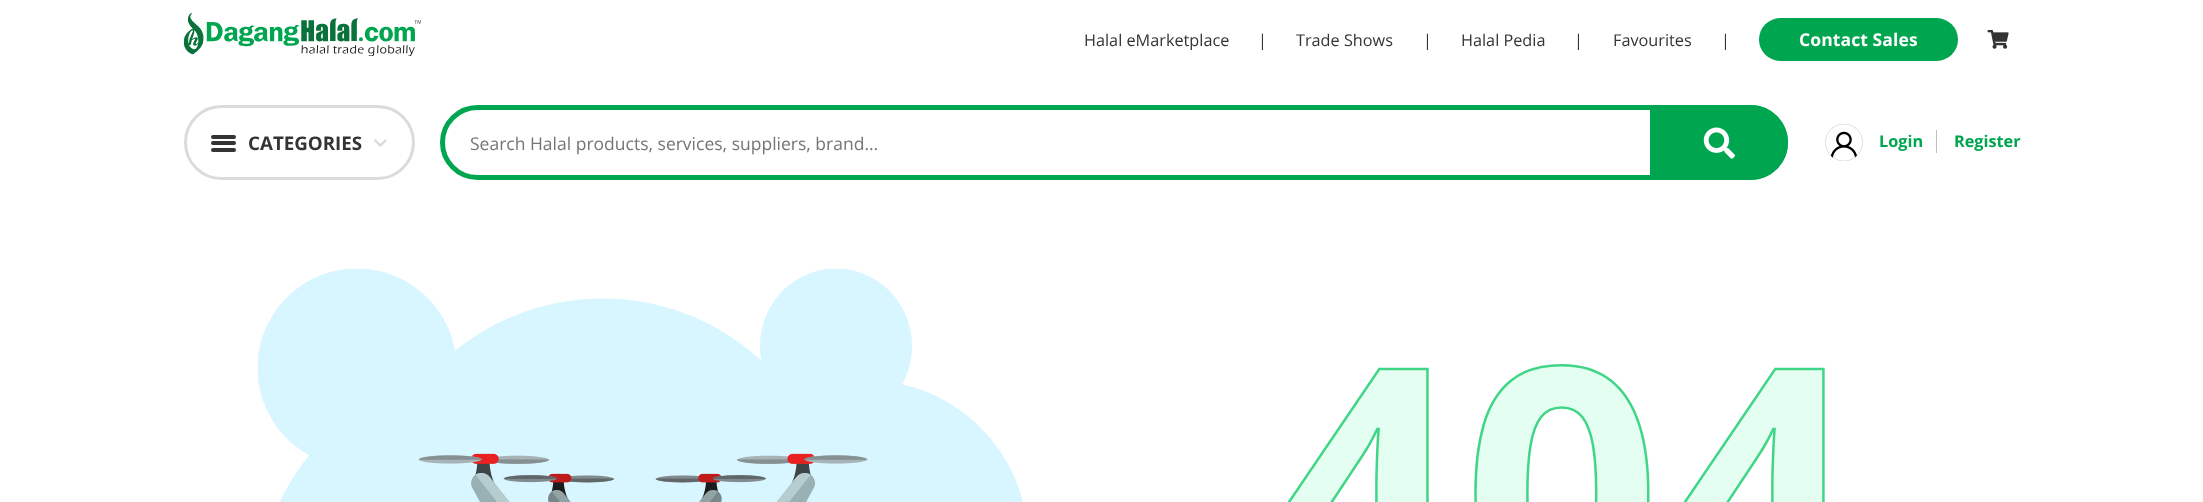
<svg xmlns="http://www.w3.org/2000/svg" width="2203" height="502">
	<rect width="100%" height="100%" fill="#FFFFFF" />
	<image x="184" y="13" width="237" height="43" href="assets/img1.png" />
	<g font-family="Open Sans" font-size="16.25" fill="#343434">
		<text x="1084" y="46">Halal eMarketplace</text>
		<text x="1258" y="46">|</text>
		<text x="1296" y="46">Trade Shows</text>
		<text x="1423" y="46">|</text>
		<text x="1461" y="46">Halal Pedia</text>
		<text x="1574" y="46">|</text>
		<text x="1613" y="46">Favourites</text>
		<text x="1721" y="46">|</text>
	</g>
	<rect x="1759" y="18" width="199" height="43" rx="21.5" fill="#00A54F" />
	<text x="1799" y="46" font-family="Open Sans" font-size="17.5" font-weight="700" letter-spacing="0.1" fill="#FFFFFF">Contact Sales</text>
	<image x="1987" y="30" width="22" height="19" href="assets/img2.png" />
	<rect x="185.5" y="106.5" width="228" height="72" rx="36" fill="none" stroke="#DBDBDB" stroke-width="3" />
	<rect x="211" y="141" width="25" height="4" rx="2" fill="#343434" />
	<rect x="211" y="135" width="25" height="4" rx="2" fill="#343434" />
	<rect x="211" y="148" width="25" height="4" rx="2" fill="#343434" />
	<text x="248" y="150" font-family="Open Sans" font-size="18.75" font-weight="700" fill="#343434">CATEGORIES</text>
	<image x="374" y="139" width="13" height="8" href="assets/img3.png" />
	<rect x="442.5" y="107.5" width="1343" height="70" rx="35" fill="none" stroke="#00A54F" stroke-width="5" />
	<text x="470" y="150" font-family="Open Sans" font-size="17.5" fill="#757575">Search Halal products, services, suppliers, brand…</text>
	<path d="M1650 105H1750.5C1771 105 1788 122 1788 142.5C1788 163 1771 180 1750.5 180H1650Z" fill="#00A54F" />
	<image x="1703" y="127" width="32" height="32" href="assets/img4.png" />
	<image x="1825" y="124" width="38" height="37" href="assets/img5.png" />
	<text x="1879" y="147" font-family="Open Sans" font-size="16.25" font-weight="700" fill="#00A54F">Login</text>
	<rect x="1936" y="130" width="1" height="23" fill="#BFBFBF" />
	<text x="1954" y="147" font-family="Open Sans" font-size="16.25" font-weight="700" fill="#00A54F">Register</text>
	<image x="258" y="269" width="765" height="233" href="assets/img6.png" />
	<image x="1287" y="364" width="538" height="138" href="assets/img7.png" />
</svg>
